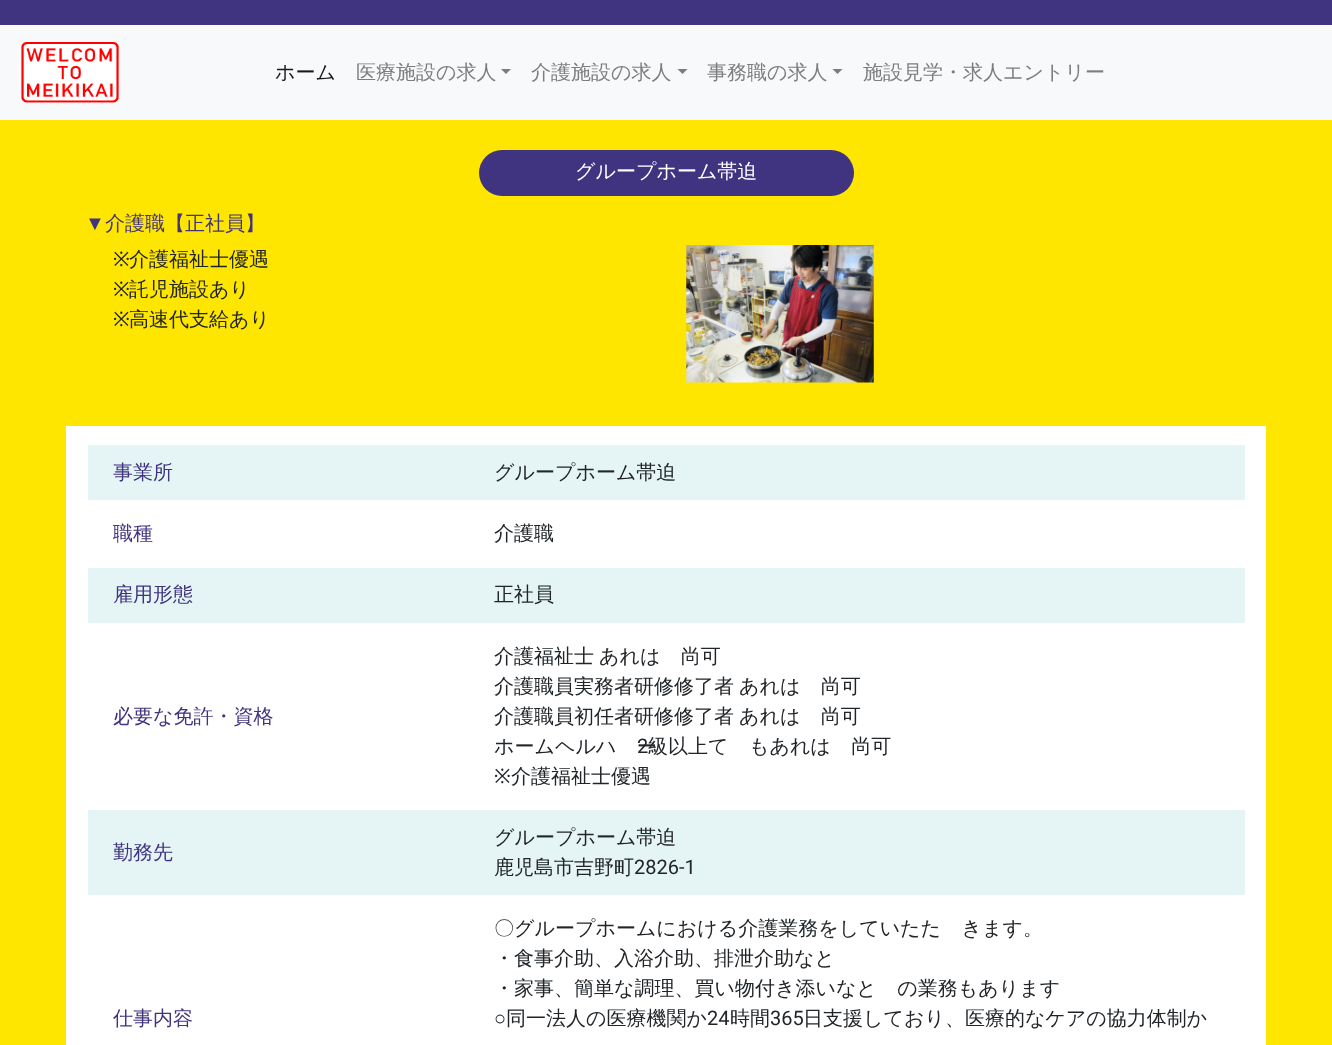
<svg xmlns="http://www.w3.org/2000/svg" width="1332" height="1045">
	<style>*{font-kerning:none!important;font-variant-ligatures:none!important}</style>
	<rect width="100%" height="100%" fill="#FFE600" />
	<rect x="0" y="0" width="1332" height="25" fill="#40337F" />
	<rect x="0" y="25" width="1332" height="95" fill="#F8F9FA" />
	<image x="21" y="42" width="98" height="61" href="assets/img1.png" />
	<text x="275" y="79" font-family="WenQuanYi Zen Hei" font-size="20" font-weight="500" fill="#191919">ホーム</text>
	<text x="356" y="79" font-family="WenQuanYi Zen Hei" font-size="20" font-weight="500" fill="#7C7D7D">医療施設の求人</text>
	<path d="M501 69H511L506 74Z" fill="#7C7D7D" />
	<text x="531" y="79" font-family="WenQuanYi Zen Hei" font-size="20" font-weight="500" fill="#7C7D7D">介護施設の求人</text>
	<path d="M677.5 69H687.5L682.5 74Z" fill="#7C7D7D" />
	<text x="707" y="79" font-family="WenQuanYi Zen Hei" font-size="20" font-weight="500" fill="#7C7D7D">事務職の求人</text>
	<path d="M832.5 69H842.5L837.5 74Z" fill="#7C7D7D" />
	<text x="863" y="79" font-family="WenQuanYi Zen Hei" font-size="20" font-weight="500" fill="#7C7D7D">施設見学・求人エントリー</text>
	<rect x="479" y="150" width="375" height="46" rx="23" fill="#40337F" />
	<text x="575" y="178" font-family="WenQuanYi Zen Hei" font-size="20" font-weight="500" fill="#FFFFFF">グループホーム帯迫</text>
	<text x="85" y="230" font-family="Liberation Sans" font-size="20" fill="#40337F">▼</text>
	<text x="105" y="230" font-family="WenQuanYi Zen Hei" font-size="20" font-weight="500" fill="#40337F">介護職【正社員】</text>
	<text x="113" y="266" font-family="Noto Sans" font-size="20" fill="#212529">※</text>
	<text x="129" y="266" font-family="WenQuanYi Zen Hei" font-size="20" font-weight="500" fill="#212529">介護福祉士優遇</text>
	<text x="113" y="296" font-family="Noto Sans" font-size="20" fill="#212529">※</text>
	<text x="129" y="296" font-family="WenQuanYi Zen Hei" font-size="20" font-weight="500" fill="#212529">託児施設あり</text>
	<text x="113" y="326" font-family="Noto Sans" font-size="20" fill="#212529">※</text>
	<text x="129" y="326" font-family="WenQuanYi Zen Hei" font-size="20" font-weight="500" fill="#212529">高速代支給あり</text>
	<image x="686" y="245" width="188" height="138" href="assets/img2.png" />
	<rect x="66" y="426" width="1200" height="619" fill="#FFFFFF" />
	<rect x="88" y="445" width="1157" height="55" fill="#E5F5F5" />
	<text x="113" y="479" font-family="WenQuanYi Zen Hei" font-size="20" font-weight="500" fill="#40337F">事業所</text>
	<text x="494" y="479" font-family="WenQuanYi Zen Hei" font-size="20" font-weight="500" fill="#212529">グループホーム帯迫</text>
	<text x="113" y="540" font-family="WenQuanYi Zen Hei" font-size="20" font-weight="500" fill="#40337F">職種</text>
	<text x="494" y="540" font-family="WenQuanYi Zen Hei" font-size="20" font-weight="500" fill="#212529">介護職</text>
	<rect x="88" y="568" width="1157" height="55" fill="#E5F5F5" />
	<text x="113" y="601" font-family="WenQuanYi Zen Hei" font-size="20" font-weight="500" fill="#40337F">雇用形態</text>
	<text x="494" y="601" font-family="WenQuanYi Zen Hei" font-size="20" font-weight="500" fill="#212529">正社員</text>
	<text x="113" y="723" font-family="WenQuanYi Zen Hei" font-size="20" font-weight="500" fill="#40337F">必要な免許・資格</text>
	<g font-family="WenQuanYi Zen Hei" font-size="20" font-weight="500" fill="#212529">
		<text x="494" y="663" word-spacing="-1">介護福祉士 あれば尚可</text>
		<text x="494" y="693" word-spacing="-1">介護職員実務者研修修了者 あれば尚可</text>
		<text x="494" y="723" word-spacing="-1">介護職員初任者研修修了者 あれば尚可</text>
		<text x="494" y="753">ホームヘルパー</text>
	</g>
	<text x="637" y="753" font-family="Roboto" font-size="20" fill="#212529">2</text>
	<text x="648" y="753" font-family="WenQuanYi Zen Hei" font-size="20" font-weight="500" fill="#212529">級以上でもあれば尚可</text>
	<text x="494" y="783" font-family="Noto Sans" font-size="20" fill="#212529">※</text>
	<text x="511" y="783" font-family="WenQuanYi Zen Hei" font-size="20" font-weight="500" fill="#212529">介護福祉士優遇</text>
	<rect x="88" y="810" width="1157" height="85" fill="#E5F5F5" />
	<text x="113" y="859" font-family="WenQuanYi Zen Hei" font-size="20" font-weight="500" fill="#40337F">勤務先</text>
	<g font-family="WenQuanYi Zen Hei" font-size="20" font-weight="500" fill="#212529">
		<text x="494" y="844">グループホーム帯迫</text>
		<text x="494" y="874">鹿児島市吉野町</text>
	</g>
	<text x="634" y="874" font-family="Roboto" font-size="20" fill="#212529">2826-1</text>
	<text x="113" y="1025" font-family="WenQuanYi Zen Hei" font-size="20" font-weight="500" fill="#40337F">仕事内容</text>
	<g font-family="WenQuanYi Zen Hei" font-size="20" font-weight="500" fill="#212529">
		<text x="494" y="935">〇グループホームにおける介護業務をしていただきます。</text>
		<text x="494" y="965">・食事介助、入浴介助、排泄介助など</text>
		<text x="494" y="995">・家事、簡単な調理、買い物付き添いなどの業務もあります</text>
	</g>
	<text x="494" y="1025" font-family="Liberation Sans" font-size="20" fill="#212529">○</text>
	<text x="506" y="1025" font-family="WenQuanYi Zen Hei" font-size="20" font-weight="500" fill="#212529">同一法人の医療機関が</text>
	<text x="707" y="1025" font-family="Roboto" font-size="20" fill="#212529">24</text>
	<text x="730" y="1025" font-family="WenQuanYi Zen Hei" font-size="20" font-weight="500" fill="#212529">時間</text>
	<text x="770" y="1025" font-family="Roboto" font-size="20" fill="#212529">365</text>
	<text x="803" y="1025" font-family="WenQuanYi Zen Hei" font-size="20" font-weight="500" fill="#212529">日支援しており、医療的なケアの協力体制が</text>
</svg>
